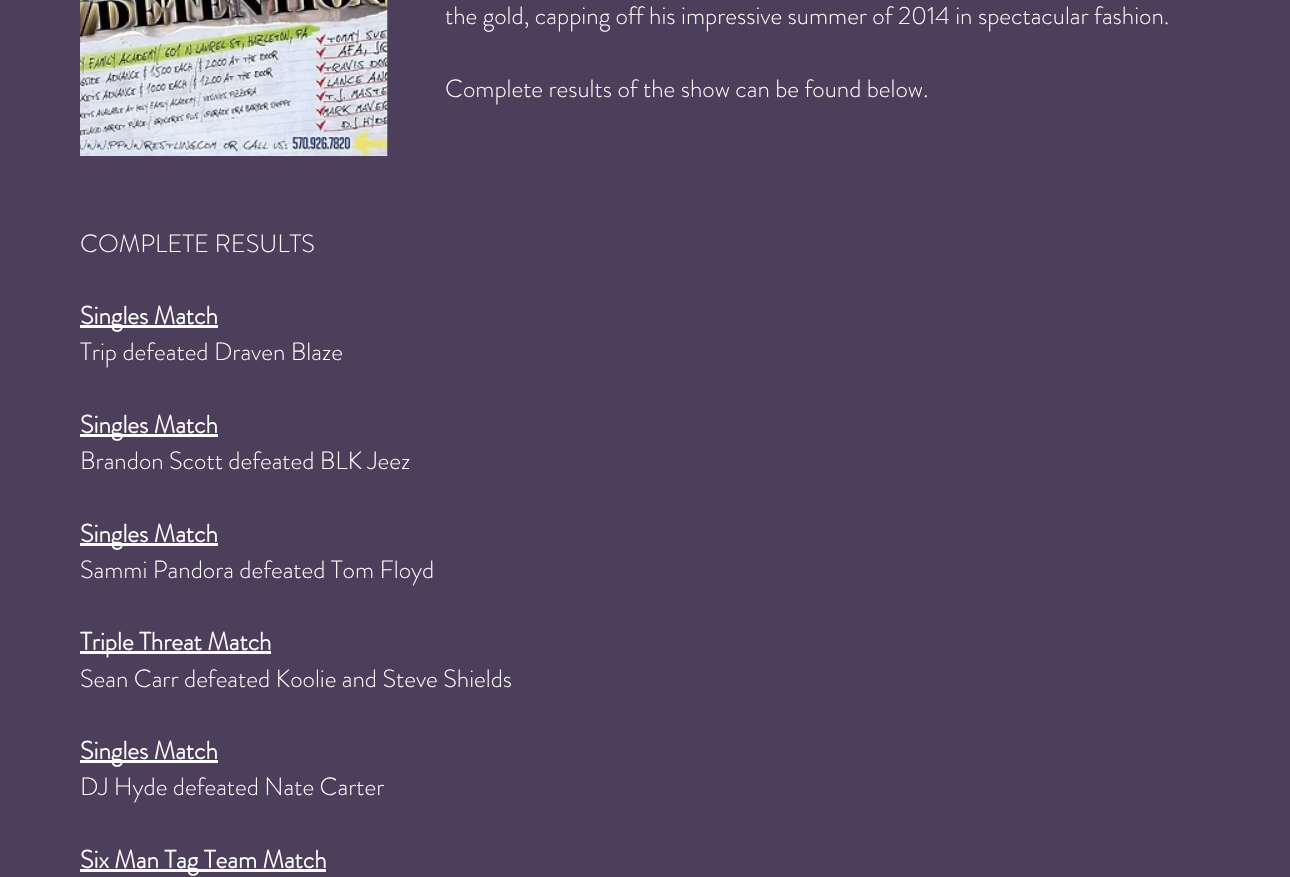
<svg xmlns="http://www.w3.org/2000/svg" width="1290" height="877">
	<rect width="100%" height="100%" fill="#4D3F5C" />
	<image x="80" y="0" width="308" height="156" href="assets/img1.png" />
	<g font-family="'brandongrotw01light'" font-size="25" font-weight="300" fill="#FFFFFF">
		<text x="445" y="24">the gold, capping off his impressive summer of 2014 in spectacular fashion.</text>
		<text x="445" y="97">Complete results of the show can be found below.</text>
		<text x="80" y="252">COMPLETE RESULTS</text>
	</g>
	<rect x="80" y="325" width="138" height="3" fill="#FFFFFF" />
	<text x="80" y="324" font-family="'brandongrotw01light'" font-size="25" font-weight="700" fill="#FFFFFF">Singles Match</text>
	<text x="80" y="360" font-family="'brandongrotw01light'" font-size="25" font-weight="300" fill="#FFFFFF">Trip defeated Draven Blaze</text>
	<rect x="80" y="434" width="138" height="3" fill="#FFFFFF" />
	<text x="80" y="433" font-family="'brandongrotw01light'" font-size="25" font-weight="700" fill="#FFFFFF">Singles Match</text>
	<text x="80" y="469" font-family="'brandongrotw01light'" font-size="25" font-weight="300" fill="#FFFFFF">Brandon Scott defeated BLK Jeez</text>
	<rect x="80" y="543" width="138" height="3" fill="#FFFFFF" />
	<text x="80" y="542" font-family="'brandongrotw01light'" font-size="25" font-weight="700" fill="#FFFFFF">Singles Match</text>
	<text x="80" y="578" font-family="'brandongrotw01light'" font-size="25" font-weight="300" fill="#FFFFFF">Sammi Pandora defeated Tom Floyd</text>
	<rect x="80" y="651" width="191" height="3" fill="#FFFFFF" />
	<text x="80" y="650" font-family="'brandongrotw01light'" font-size="25" font-weight="700" fill="#FFFFFF">Triple Threat Match</text>
	<text x="80" y="687" font-family="'brandongrotw01light'" font-size="25" font-weight="300" fill="#FFFFFF">Sean Carr defeated Koolie and Steve Shields</text>
	<rect x="80" y="760" width="138" height="3" fill="#FFFFFF" />
	<text x="80" y="759" font-family="'brandongrotw01light'" font-size="25" font-weight="700" fill="#FFFFFF">Singles Match</text>
	<text x="80" y="795" font-family="'brandongrotw01light'" font-size="25" font-weight="300" fill="#FFFFFF">DJ Hyde defeated Nate Carter</text>
	<rect x="80" y="869" width="246" height="3" fill="#FFFFFF" />
	<text x="80" y="868" font-family="'brandongrotw01light'" font-size="25" font-weight="700" fill="#FFFFFF">Six Man Tag Team Match</text>
</svg>
